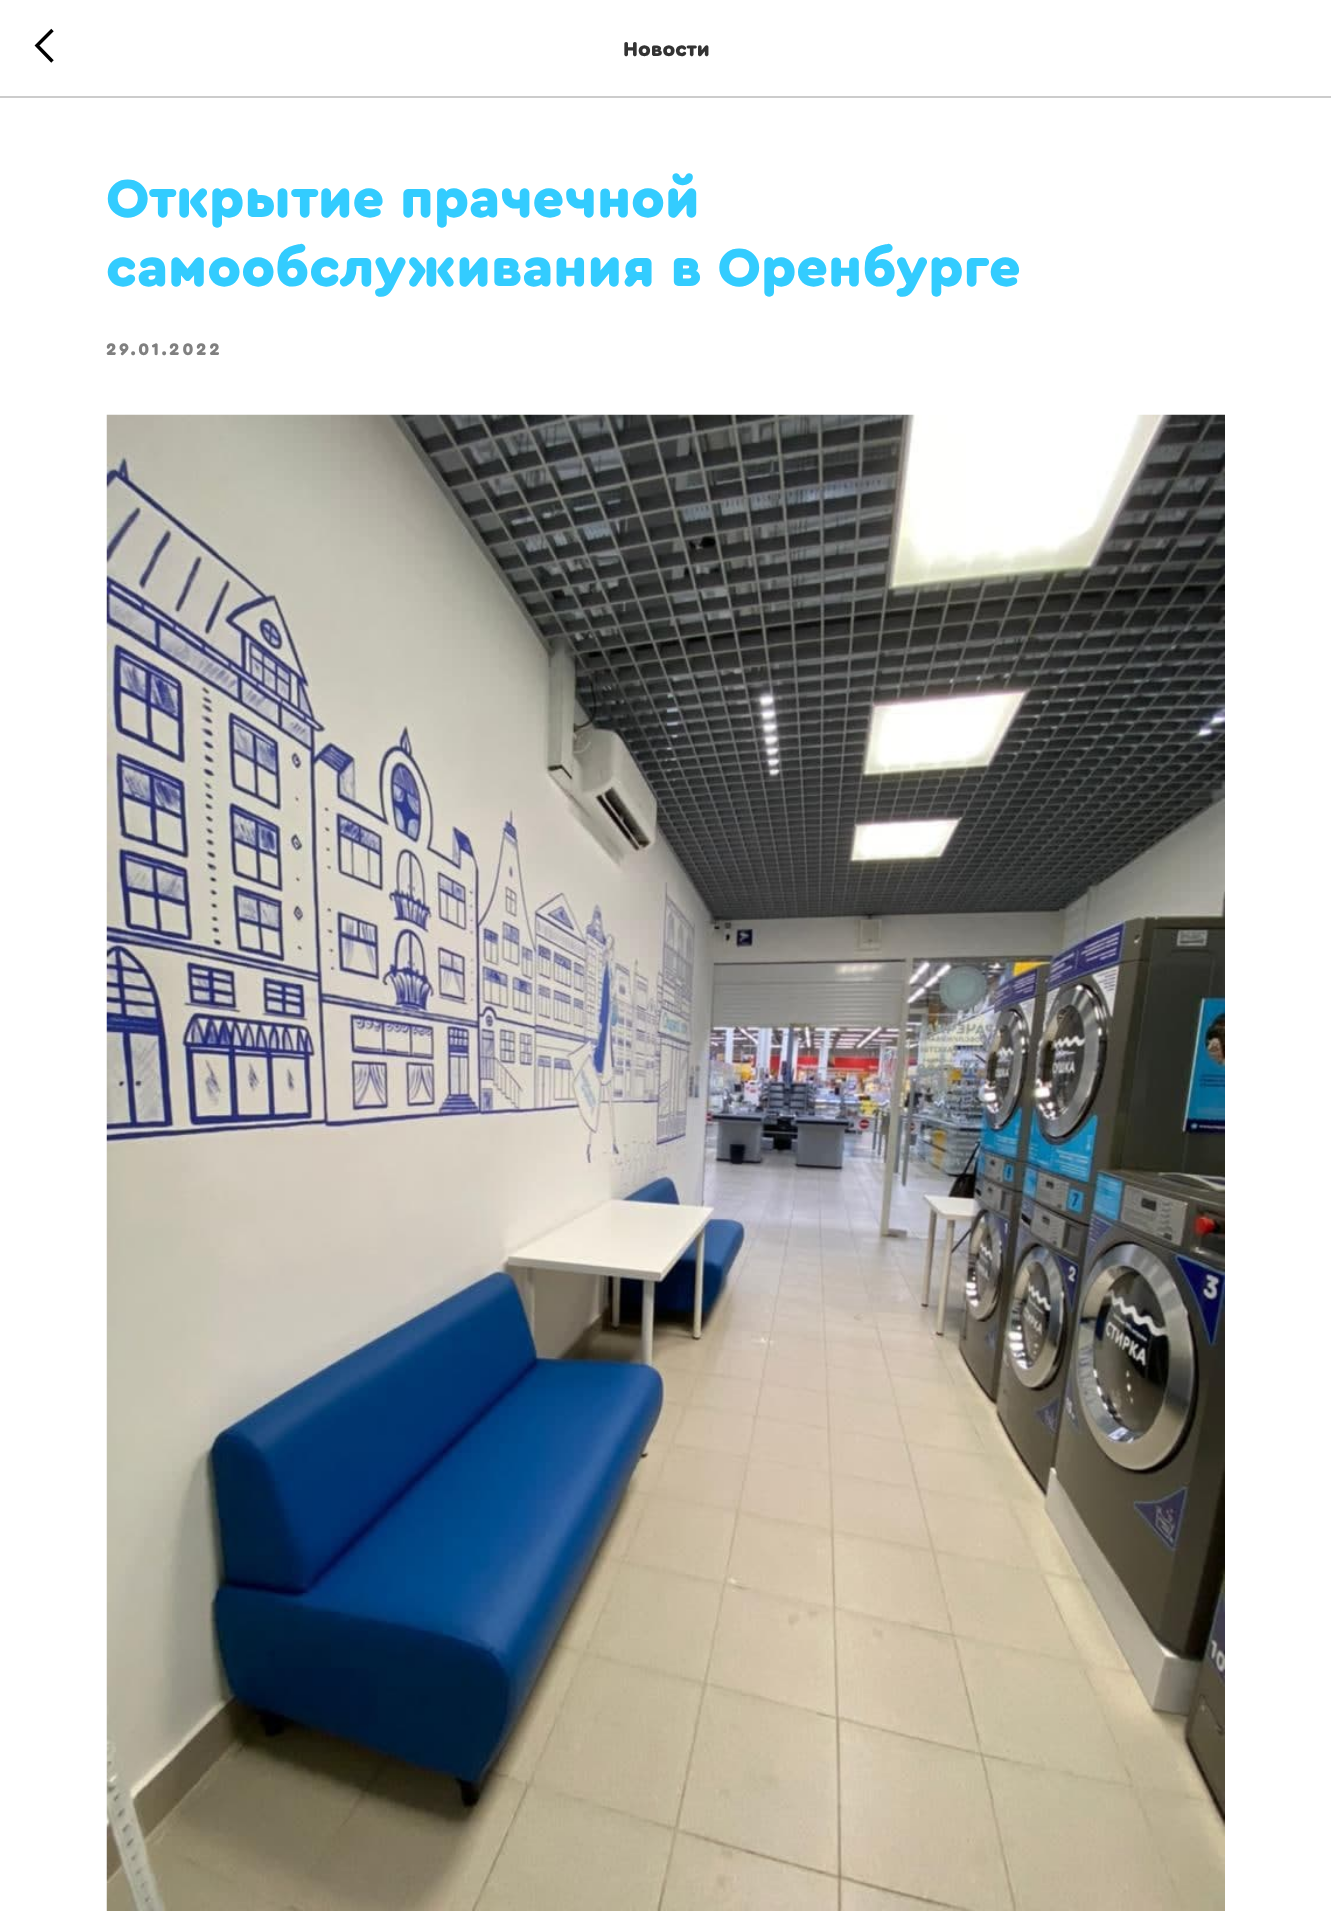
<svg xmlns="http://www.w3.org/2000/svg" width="1331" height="1924">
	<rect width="100%" height="100%" fill="#FFFFFF" />
	<rect x="0" y="96" width="1331" height="2" fill="#CCCCCC" />
	<path d="M52.5 61.5L37 45.5L52.5 30" fill="none" stroke="#000000" stroke-width="3.5" />
	<text x="623" y="56" font-family="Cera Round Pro" font-size="21" font-weight="900" fill="#333333">Новости</text>
	<g font-family="Cera Round Pro" font-size="56" font-weight="900" fill="#33CCFF">
		<text x="106" y="217">Открытие прачечной</text>
		<text x="106" y="286">самообслуживания в Оренбурге</text>
	</g>
	<text x="106" y="355" font-family="Cera Round Pro" font-size="17.5" font-weight="900" letter-spacing="2.6" fill="#808080">29.01.2022</text>
	<image x="106" y="414" width="1119" height="1497" href="assets/img1.png" />
</svg>
